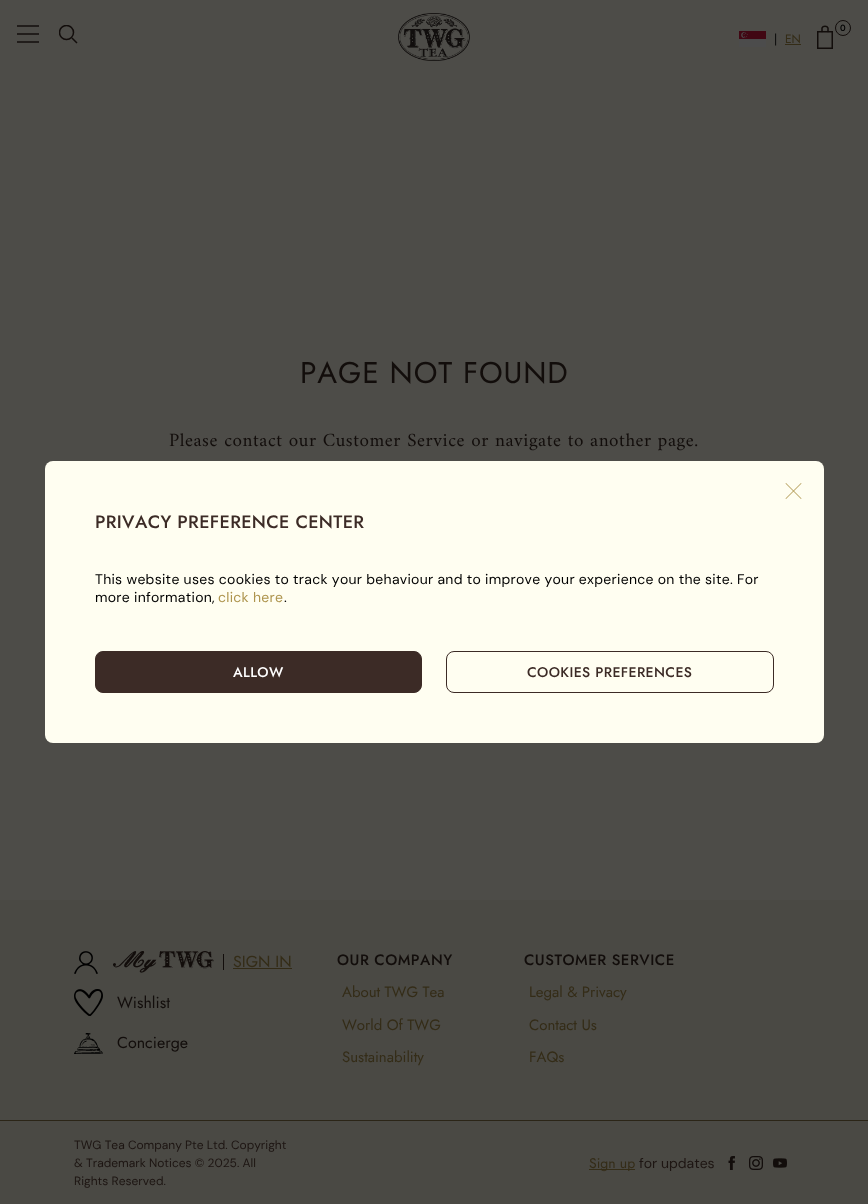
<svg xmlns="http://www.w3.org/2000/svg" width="868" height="1204">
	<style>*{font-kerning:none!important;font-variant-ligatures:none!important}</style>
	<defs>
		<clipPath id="clip1"><rect x="59" y="25" width="19" height="19" /></clipPath>
	</defs>
	<rect width="100%" height="100%" fill="#4D4C48" />
	<rect x="17" y="25" width="22" height="2" fill="#211D1B" />
	<rect x="17" y="33" width="22" height="2" fill="#211D1B" />
	<rect x="17" y="41" width="22" height="2" fill="#211D1B" />
	<g clip-path="url(#clip1)">
		<circle cx="66.5" cy="32.5" r="7" fill="none" stroke="#120D0B" stroke-width="1.5" />
	</g>
	<path d="M77 43L72 38" fill="none" stroke="#120D0B" stroke-width="1.5" />
	<image x="398" y="13" width="72" height="48" href="assets/img1.png" />
	<rect x="817.75" y="31.75" width="14.5" height="16.5" fill="none" stroke="#120D0B" stroke-width="1.5" />
	<path d="M822 31.5V28C823 25.5 827 25.5 828 28V31.5" fill="none" stroke="#120D0B" stroke-width="1.5" stroke-linecap="round" />
	<circle cx="843" cy="28" r="7.5" fill="none" stroke="#120D0B" />
	<text x="840" y="31" font-family="Jost" font-size="9" font-weight="500" fill="#000000">0</text>
	<image x="739" y="31" width="27" height="16" href="assets/img2.png" />
	<text x="774" y="43" font-family="Jost" font-size="12" fill="#000000">|</text>
	<text x="785" y="43" font-family="Jost" font-size="12" fill="#342C17">EN</text>
	<rect x="785" y="44" width="16" height="1" fill="#342C17" />
	<text x="300" y="383" font-family="Jost" font-size="30" letter-spacing="0.9" fill="#120D0B">PAGE NOT FOUND</text>
	<text x="169" y="446" font-family="Amiri" font-size="19" letter-spacing="0.57" fill="#120D0B">Please contact our Customer Service or navigate to another page.</text>
	<rect x="45" y="461" width="779" height="282" rx="8" fill="#FFFEF1" />
	<path d="M785.5 483.5L786 483L801.5 498.5L801 499Z" fill="#AE944D" />
	<path d="M801 483L801.5 483.5L786 499L785.5 498.5Z" fill="#AE944D" />
	<text x="95" y="528" font-family="Jost" font-size="18" font-weight="500" letter-spacing="0.35" fill="#3C2B26">PRIVACY PREFERENCE CENTER</text>
	<g font-family="DM Sans" font-size="14" letter-spacing="0.28" fill="#000000">
		<text x="95" y="584">This website uses cookies to track your behaviour and to improve your experience on the site.</text>
		<text x="737" y="584">For</text>
		<text x="95" y="602">more information,</text>
	</g>
	<text x="218" y="602" font-family="DM Sans" font-size="14" letter-spacing="0.28" fill="#AE944D">click here</text>
	<text x="284" y="602" font-family="DM Sans" font-size="14" letter-spacing="0.28" fill="#000000">.</text>
	<rect x="95.5" y="651.5" width="326" height="41" rx="7.5" fill="#3C2B26" stroke="#3C2B26" />
	<text x="233" y="677" font-family="Jost" font-size="14" font-weight="500" letter-spacing="0.4" fill="#FFFFFF">ALLOW</text>
	<rect x="446.5" y="651.5" width="327" height="41" rx="7.5" fill="none" stroke="#3C2B26" />
	<text x="527" y="677" font-family="Jost" font-size="14" font-weight="500" letter-spacing="0.4" fill="#3C2B26">COOKIES PREFERENCES</text>
	<rect x="0" y="900" width="868" height="304" fill="#4A4944" />
	<rect x="0" y="1120" width="868" height="1" fill="#2B2517" />
	<image x="74" y="951" width="24" height="23" href="assets/img3.png" />
	<image x="113" y="951" width="101" height="22" href="assets/img4.png" />
	<rect x="223" y="954" width="1" height="16" fill="#120D0B" />
	<text x="233" y="967" font-family="Jost" font-size="16" fill="#342C17">SIGN IN</text>
	<rect x="233" y="968" width="59" height="1" fill="#322A16" />
	<image x="74" y="989" width="29" height="27" href="assets/img5.png" />
	<text x="117" y="1008" font-family="Jost" font-size="16" fill="#120D0B">Wishlist</text>
	<image x="74" y="1033" width="29" height="21" href="assets/img6.png" />
	<text x="117" y="1048" font-family="Jost" font-size="16" fill="#120D0B">Concierge</text>
	<text x="337" y="965" font-family="Jost" font-size="15" font-weight="500" letter-spacing="0.5" fill="#120D0B">OUR COMPANY</text>
	<g font-family="Jost" font-size="15" fill="#342C17">
		<text x="342" y="997">About TWG Tea</text>
		<text x="342" y="1030">World Of TWG</text>
		<text x="342" y="1062">Sustainability</text>
	</g>
	<text x="524" y="965" font-family="Jost" font-size="15" font-weight="500" letter-spacing="0.5" fill="#120D0B">CUSTOMER SERVICE</text>
	<g font-family="Jost" font-size="15" fill="#342C17">
		<text x="529" y="997">Legal &amp; Privacy</text>
		<text x="529" y="1030">Contact Us</text>
		<text x="529" y="1062">FAQs</text>
	</g>
	<g font-family="DM Sans" font-size="12" fill="#1D1512">
		<text x="74" y="1149">TWG Tea Company Pte Ltd. Copyright</text>
		<text x="74" y="1167">&amp; Trademark Notices © 2025. All</text>
		<text x="74" y="1185">Rights Reserved.</text>
	</g>
	<rect x="589" y="1169" width="46" height="1" fill="#342C17" />
	<text x="589" y="1168" font-family="Jost" font-size="14" fill="#342C17">Sign up</text>
	<text x="639" y="1168" font-family="DM Sans" font-size="14" fill="#1D1512">for updates</text>
	<image x="728" y="1156" width="7" height="14" href="assets/img7.png" />
	<image x="749" y="1156" width="14" height="14" href="assets/img8.png" />
	<image x="773" y="1158" width="14" height="10" href="assets/img9.png" />
</svg>
